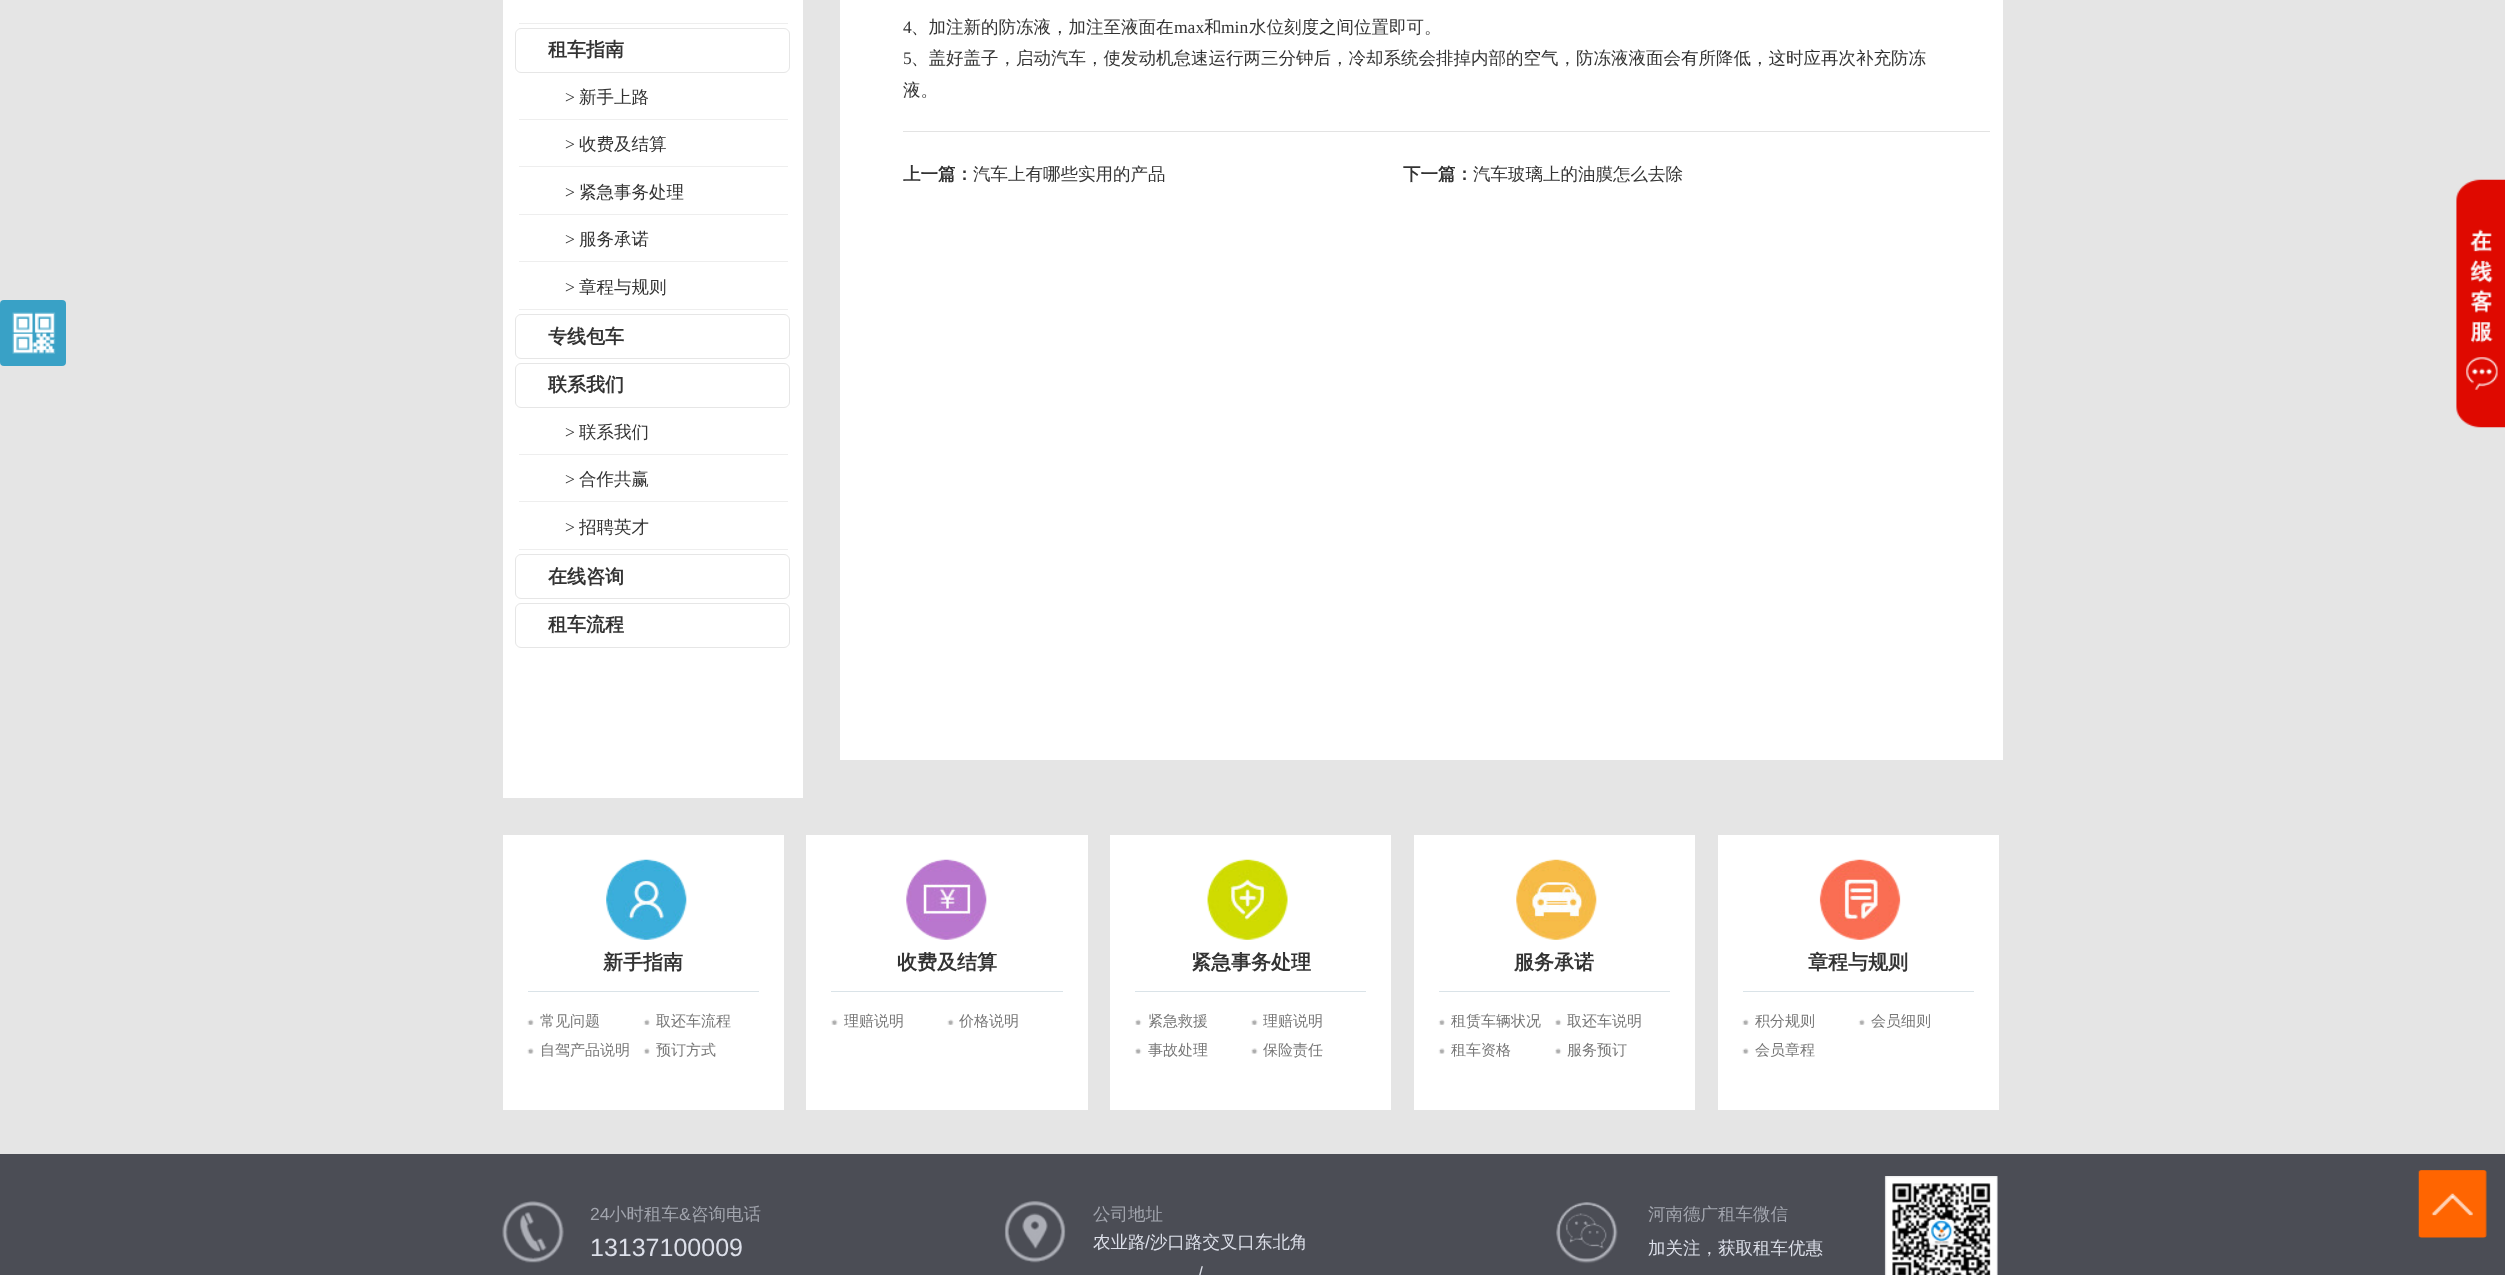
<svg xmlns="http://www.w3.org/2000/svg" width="2505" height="1275">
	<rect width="100%" height="100%" fill="#E5E5E5" />
	<rect x="0" y="300" width="66" height="66" rx="4" fill="#39A1C6" />
	<image x="12" y="312" width="44" height="42" href="assets/img1.png" />
	<rect x="503" y="0" width="300" height="798" fill="#FFFFFF" />
	<rect x="519" y="23" width="269" height="1" fill="#EEEEEE" />
	<rect x="515.5" y="28.5" width="274" height="44" rx="5.5" fill="none" stroke="#E6E6E6" />
	<text x="548" y="56" font-family="WenQuanYi Zen Hei" font-size="19" font-weight="700" fill="#333333">租车指南</text>
	<rect x="519" y="119" width="269" height="1" fill="#EEEEEE" />
	<text x="565" y="103" font-family="Liberation Serif" font-size="17.5" fill="#333333">&gt;</text>
	<text x="579" y="103" font-family="WenQuanYi Zen Hei" font-size="17.5" font-weight="500" fill="#333333">新手上路</text>
	<rect x="519" y="166" width="269" height="1" fill="#EEEEEE" />
	<text x="565" y="150" font-family="Liberation Serif" font-size="17.5" fill="#333333">&gt;</text>
	<text x="579" y="150" font-family="WenQuanYi Zen Hei" font-size="17.5" font-weight="500" fill="#333333">收费及结算</text>
	<rect x="519" y="214" width="269" height="1" fill="#EEEEEE" />
	<text x="565" y="198" font-family="Liberation Serif" font-size="17.5" fill="#333333">&gt;</text>
	<text x="579" y="198" font-family="WenQuanYi Zen Hei" font-size="17.5" font-weight="500" fill="#333333">紧急事务处理</text>
	<rect x="519" y="261" width="269" height="1" fill="#EEEEEE" />
	<text x="565" y="245" font-family="Liberation Serif" font-size="17.5" fill="#333333">&gt;</text>
	<text x="579" y="245" font-family="WenQuanYi Zen Hei" font-size="17.5" font-weight="500" fill="#333333">服务承诺</text>
	<rect x="519" y="309" width="269" height="1" fill="#EEEEEE" />
	<text x="565" y="293" font-family="Liberation Serif" font-size="17.5" fill="#333333">&gt;</text>
	<text x="579" y="293" font-family="WenQuanYi Zen Hei" font-size="17.5" font-weight="500" fill="#333333">章程与规则</text>
	<rect x="515.5" y="314.5" width="274" height="44" rx="5.5" fill="none" stroke="#E6E6E6" />
	<text x="548" y="343" font-family="WenQuanYi Zen Hei" font-size="19" font-weight="700" fill="#333333">专线包车</text>
	<rect x="515.5" y="363.5" width="274" height="44" rx="5.5" fill="none" stroke="#E6E6E6" />
	<text x="548" y="391" font-family="WenQuanYi Zen Hei" font-size="19" font-weight="700" fill="#333333">联系我们</text>
	<rect x="519" y="454" width="269" height="1" fill="#EEEEEE" />
	<text x="565" y="438" font-family="Liberation Serif" font-size="17.5" fill="#333333">&gt;</text>
	<text x="579" y="438" font-family="WenQuanYi Zen Hei" font-size="17.5" font-weight="500" fill="#333333">联系我们</text>
	<rect x="519" y="501" width="269" height="1" fill="#EEEEEE" />
	<text x="565" y="485" font-family="Liberation Serif" font-size="17.5" fill="#333333">&gt;</text>
	<text x="579" y="485" font-family="WenQuanYi Zen Hei" font-size="17.5" font-weight="500" fill="#333333">合作共赢</text>
	<rect x="519" y="549" width="269" height="1" fill="#EEEEEE" />
	<text x="565" y="533" font-family="Liberation Serif" font-size="17.5" fill="#333333">&gt;</text>
	<text x="579" y="533" font-family="WenQuanYi Zen Hei" font-size="17.5" font-weight="500" fill="#333333">招聘英才</text>
	<rect x="515.5" y="554.5" width="274" height="44" rx="5.5" fill="none" stroke="#E6E6E6" />
	<text x="548" y="583" font-family="WenQuanYi Zen Hei" font-size="19" font-weight="700" fill="#333333">在线咨询</text>
	<rect x="515.5" y="603.5" width="274" height="44" rx="5.5" fill="none" stroke="#E6E6E6" />
	<text x="548" y="631" font-family="WenQuanYi Zen Hei" font-size="19" font-weight="700" fill="#333333">租车流程</text>
	<rect x="840" y="0" width="1163" height="760" fill="#FFFFFF" />
	<text x="903" y="33" font-family="Liberation Serif" font-size="17.5" fill="#333333">4</text>
	<text x="911" y="33" font-family="WenQuanYi Zen Hei" font-size="17.5" font-weight="500" fill="#333333">、加注新的防冻液，加注至液面在</text>
	<text x="1174" y="33" font-family="Liberation Serif" font-size="17.5" fill="#333333">max</text>
	<text x="1204" y="33" font-family="WenQuanYi Zen Hei" font-size="17.5" font-weight="500" fill="#333333">和</text>
	<text x="1221" y="33" font-family="Liberation Serif" font-size="17.5" fill="#333333">min</text>
	<text x="1249" y="33" font-family="WenQuanYi Zen Hei" font-size="17.5" font-weight="500" fill="#333333">水位刻度之间位置即可。</text>
	<text x="903" y="64" font-family="Liberation Serif" font-size="17.5" fill="#333333">5</text>
	<g font-family="WenQuanYi Zen Hei" font-size="17.5" font-weight="500" fill="#333333">
		<text x="911" y="64">、盖好盖子，启动汽车，使发动机怠速运行两三分钟后，冷却系统会排掉内部的空气，防冻液液面会有所降低，这时应再次补充防冻</text>
		<text x="903" y="96">液。</text>
	</g>
	<rect x="903" y="131" width="1087" height="1" fill="#E3E3E3" />
	<text x="903" y="180" font-family="WenQuanYi Zen Hei" font-size="17.5" font-weight="700" fill="#333333">上一篇：</text>
	<text x="973" y="180" font-family="WenQuanYi Zen Hei" font-size="17.5" font-weight="500" fill="#333333">汽车上有哪些实用的产品</text>
	<text x="1403" y="180" font-family="WenQuanYi Zen Hei" font-size="17.5" font-weight="700" fill="#333333">下一篇：</text>
	<text x="1473" y="180" font-family="WenQuanYi Zen Hei" font-size="17.5" font-weight="500" fill="#333333">汽车玻璃上的油膜怎么去除</text>
	<image x="2456" y="179" width="49" height="249" href="assets/img2.png" />
	<rect x="503" y="835" width="281" height="275" fill="#FFFFFF" />
	<image x="606" y="859" width="81" height="81" href="assets/img3.png" />
	<rect x="528" y="991" width="231" height="1" fill="#DAE3E8" />
	<text x="603" y="969" font-family="WenQuanYi Zen Hei" font-size="20" font-weight="700" fill="#333333">新手指南</text>
	<image x="527" y="1019" width="7" height="6" href="assets/img4.png" />
	<text x="540" y="1026" font-family="WenQuanYi Zen Hei" font-size="15" font-weight="500" fill="#777777">常见问题</text>
	<image x="643" y="1019" width="7" height="6" href="assets/img5.png" />
	<text x="656" y="1026" font-family="WenQuanYi Zen Hei" font-size="15" font-weight="500" fill="#777777">取还车流程</text>
	<image x="527" y="1048" width="7" height="6" href="assets/img6.png" />
	<text x="540" y="1055" font-family="WenQuanYi Zen Hei" font-size="15" font-weight="500" fill="#777777">自驾产品说明</text>
	<image x="643" y="1048" width="7" height="6" href="assets/img7.png" />
	<text x="656" y="1055" font-family="WenQuanYi Zen Hei" font-size="15" font-weight="500" fill="#777777">预订方式</text>
	<rect x="806" y="835" width="282" height="275" fill="#FFFFFF" />
	<image x="906" y="859" width="81" height="81" href="assets/img8.png" />
	<rect x="831" y="991" width="232" height="1" fill="#DAE3E8" />
	<text x="897" y="969" font-family="WenQuanYi Zen Hei" font-size="20" font-weight="700" fill="#333333">收费及结算</text>
	<image x="831" y="1019" width="7" height="6" href="assets/img9.png" />
	<text x="844" y="1026" font-family="WenQuanYi Zen Hei" font-size="15" font-weight="500" fill="#777777">理赔说明</text>
	<image x="947" y="1019" width="7" height="6" href="assets/img10.png" />
	<text x="959" y="1026" font-family="WenQuanYi Zen Hei" font-size="15" font-weight="500" fill="#777777">价格说明</text>
	<rect x="1110" y="835" width="281" height="275" fill="#FFFFFF" />
	<image x="1207" y="859" width="81" height="81" href="assets/img11.png" />
	<rect x="1135" y="991" width="231" height="1" fill="#DAE3E8" />
	<text x="1191" y="969" font-family="WenQuanYi Zen Hei" font-size="20" font-weight="700" fill="#333333">紧急事务处理</text>
	<image x="1135" y="1019" width="7" height="6" href="assets/img12.png" />
	<text x="1148" y="1026" font-family="WenQuanYi Zen Hei" font-size="15" font-weight="500" fill="#777777">紧急救援</text>
	<image x="1251" y="1019" width="7" height="6" href="assets/img13.png" />
	<text x="1263" y="1026" font-family="WenQuanYi Zen Hei" font-size="15" font-weight="500" fill="#777777">理赔说明</text>
	<image x="1135" y="1048" width="7" height="6" href="assets/img14.png" />
	<text x="1148" y="1055" font-family="WenQuanYi Zen Hei" font-size="15" font-weight="500" fill="#777777">事故处理</text>
	<image x="1251" y="1048" width="7" height="6" href="assets/img15.png" />
	<text x="1263" y="1055" font-family="WenQuanYi Zen Hei" font-size="15" font-weight="500" fill="#777777">保险责任</text>
	<rect x="1414" y="835" width="281" height="275" fill="#FFFFFF" />
	<image x="1516" y="859" width="81" height="81" href="assets/img16.png" />
	<rect x="1439" y="991" width="231" height="1" fill="#DAE3E8" />
	<text x="1514" y="969" font-family="WenQuanYi Zen Hei" font-size="20" font-weight="700" fill="#333333">服务承诺</text>
	<image x="1438" y="1019" width="7" height="6" href="assets/img17.png" />
	<text x="1451" y="1026" font-family="WenQuanYi Zen Hei" font-size="15" font-weight="500" fill="#777777">租赁车辆状况</text>
	<image x="1555" y="1019" width="7" height="6" href="assets/img18.png" />
	<text x="1567" y="1026" font-family="WenQuanYi Zen Hei" font-size="15" font-weight="500" fill="#777777">取还车说明</text>
	<image x="1438" y="1048" width="7" height="6" href="assets/img19.png" />
	<text x="1451" y="1055" font-family="WenQuanYi Zen Hei" font-size="15" font-weight="500" fill="#777777">租车资格</text>
	<image x="1555" y="1048" width="7" height="6" href="assets/img20.png" />
	<text x="1567" y="1055" font-family="WenQuanYi Zen Hei" font-size="15" font-weight="500" fill="#777777">服务预订</text>
	<rect x="1718" y="835" width="281" height="275" fill="#FFFFFF" />
	<image x="1819" y="859" width="82" height="81" href="assets/img21.png" />
	<rect x="1743" y="991" width="231" height="1" fill="#DAE3E8" />
	<text x="1808" y="969" font-family="WenQuanYi Zen Hei" font-size="20" font-weight="700" fill="#333333">章程与规则</text>
	<image x="1742" y="1019" width="7" height="6" href="assets/img4.png" />
	<text x="1755" y="1026" font-family="WenQuanYi Zen Hei" font-size="15" font-weight="500" fill="#777777">积分规则</text>
	<image x="1858" y="1019" width="7" height="6" href="assets/img22.png" />
	<text x="1871" y="1026" font-family="WenQuanYi Zen Hei" font-size="15" font-weight="500" fill="#777777">会员细则</text>
	<image x="1742" y="1048" width="7" height="6" href="assets/img6.png" />
	<text x="1755" y="1055" font-family="WenQuanYi Zen Hei" font-size="15" font-weight="500" fill="#777777">会员章程</text>
	<rect x="0" y="1154" width="2505" height="121" fill="#4B4D55" />
	<image x="502" y="1176" width="1496" height="99" href="assets/img23.png" />
	<text x="590" y="1220" font-family="Liberation Sans" font-size="17.5" fill="#A2A5AE">24</text>
	<text x="609" y="1220" font-family="WenQuanYi Zen Hei" font-size="17.5" font-weight="500" fill="#A2A5AE">小时租车</text>
	<text x="679" y="1220" font-family="Liberation Sans" font-size="17.5" fill="#A2A5AE">&amp;</text>
	<text x="691" y="1220" font-family="WenQuanYi Zen Hei" font-size="17.5" font-weight="500" fill="#A2A5AE">咨询电话</text>
	<text x="590" y="1256" font-family="Liberation Sans" font-size="25" fill="#DCDFE9">13137100009</text>
	<text x="1093" y="1220" font-family="WenQuanYi Zen Hei" font-size="17.5" font-weight="500" fill="#A2A5AE">公司地址</text>
	<text x="1093" y="1248" font-family="WenQuanYi Zen Hei" font-size="17.5" font-weight="500" fill="#DCDFE9">农业路</text>
	<text x="1145" y="1248" font-family="Liberation Sans" font-size="17.5" fill="#DCDFE9">/</text>
	<text x="1150" y="1248" font-family="WenQuanYi Zen Hei" font-size="17.5" font-weight="500" fill="#DCDFE9">沙口路交叉口东北角</text>
	<text x="1198" y="1279" font-family="Liberation Sans" font-size="17.5" fill="#DCDFE9">/</text>
	<text x="1648" y="1220" font-family="WenQuanYi Zen Hei" font-size="17.5" font-weight="500" fill="#A2A5AE">河南德广租车微信</text>
	<text x="1648" y="1254" font-family="WenQuanYi Zen Hei" font-size="17.5" font-weight="500" fill="#DCDFE9">加关注，获取租车优惠</text>
	<image x="2418" y="1170" width="69" height="68" href="assets/img24.png" />
</svg>
